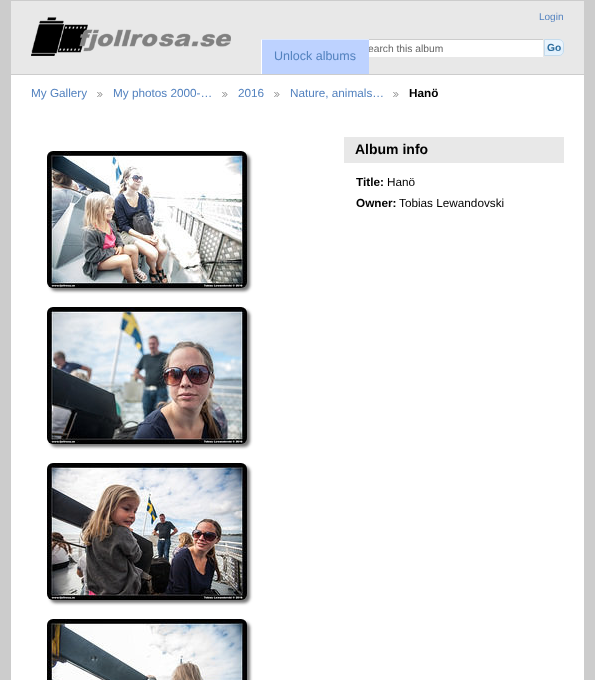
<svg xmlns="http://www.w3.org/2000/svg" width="595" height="680">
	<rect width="100%" height="100%" fill="#CCCCCC" />
	<rect x="11" y="75" width="573" height="605" fill="#FFFFFF" />
	<rect x="11" y="1" width="573" height="73" fill="#E8E8E8" />
	<image x="31" y="17" width="200" height="39" href="assets/img1.png" />
	<text x="539" y="20" font-family="Liberation Sans" font-size="10" fill="#5382BF">Login</text>
	<rect x="369" y="39" width="175" height="19" fill="#FFFFFF" />
	<path d="M359 39C358 39 356 40 355 40L356 41C357 40 358 40 359 40H543L544 39Z" fill="#CCCCCC" />
	<path d="M544 39L543 40V57L544 58Z" fill="#E8E8E8" />
	<path d="M544 58L543 57H358L356 56L355 57C356 58 358 58 359 58Z" fill="#E8E8E8" />
	<text x="368" y="52" font-family="Liberation Sans" font-size="10.25" fill="#666666">earch this album</text>
	<image x="545" y="39" width="19" height="17" href="assets/img2.png" />
	<path d="M544.5 39.5H559C561.5 39.5 563.5 41.5 563.5 44V51C563.5 53.5 561.5 55.5 559 55.5H544.5Z" fill="none" stroke="#C5DBEC" />
	<text x="547" y="51" font-family="Liberation Sans" font-size="10.25" font-weight="700" fill="#2E6E9E">Go</text>
	<rect x="261" y="39" width="108" height="35" fill="#BDD2FF" />
	<path d="M261 39H369V40H262Z" fill="#DEE9FF" />
	<path d="M261 74V39L262 40V74Z" fill="#FFFFFF" />
	<text x="274" y="60" font-family="Liberation Sans" font-size="12.5" fill="#5382BF">Unlock albums</text>
	<text x="31" y="97" font-family="Liberation Sans" font-size="11.75" fill="#5382BF">My Gallery</text>
	<image x="97" y="92" width="6" height="5" href="assets/img3.png" />
	<text x="113" y="97" font-family="Liberation Sans" font-size="11.75" fill="#5382BF">My photos 2000-…</text>
	<image x="222" y="92" width="6" height="5" href="assets/img3.png" />
	<text x="238" y="97" font-family="Liberation Sans" font-size="11.75" fill="#5382BF">2016</text>
	<image x="274" y="92" width="6" height="5" href="assets/img3.png" />
	<text x="290" y="97" font-family="Liberation Sans" font-size="11.75" fill="#5382BF">Nature, animals…</text>
	<image x="393" y="92" width="6" height="5" href="assets/img3.png" />
	<text x="409" y="97" font-family="Liberation Sans" font-size="11.75" font-weight="700" fill="#000000">Hanö</text>
	<rect x="50" y="154" width="200" height="137" rx="6" fill="#777777" filter="blur(1.5px)" />
	<image x="47" y="151" width="200" height="137" href="assets/img4.png" />
	<rect x="50" y="310" width="200" height="137" rx="6" fill="#777777" filter="blur(1.5px)" />
	<image x="47" y="307" width="200" height="137" href="assets/img5.png" />
	<rect x="50" y="466" width="200" height="137" rx="6" fill="#777777" filter="blur(1.5px)" />
	<image x="47" y="463" width="200" height="137" href="assets/img6.png" />
	<rect x="50" y="622" width="200" height="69" rx="6" fill="#777777" filter="blur(1.5px)" />
	<image x="47" y="619" width="200" height="61" href="assets/img7.png" />
	<rect x="344" y="137" width="220" height="26" fill="#E8E8E8" />
	<text x="355" y="154" font-family="Liberation Sans" font-size="14" font-weight="700" fill="#000000">Album info</text>
	<text x="356" y="186" font-family="Liberation Sans" font-size="11.75" font-weight="700" fill="#000000">Title:</text>
	<text x="387" y="186" font-family="Liberation Sans" font-size="11.75" fill="#000000">Hanö</text>
	<text x="356" y="207" font-family="Liberation Sans" font-size="11.75" font-weight="700" fill="#000000">Owner:</text>
	<text x="399" y="207" font-family="Liberation Sans" font-size="11.75" fill="#000000">Tobias Lewandovski</text>
</svg>
